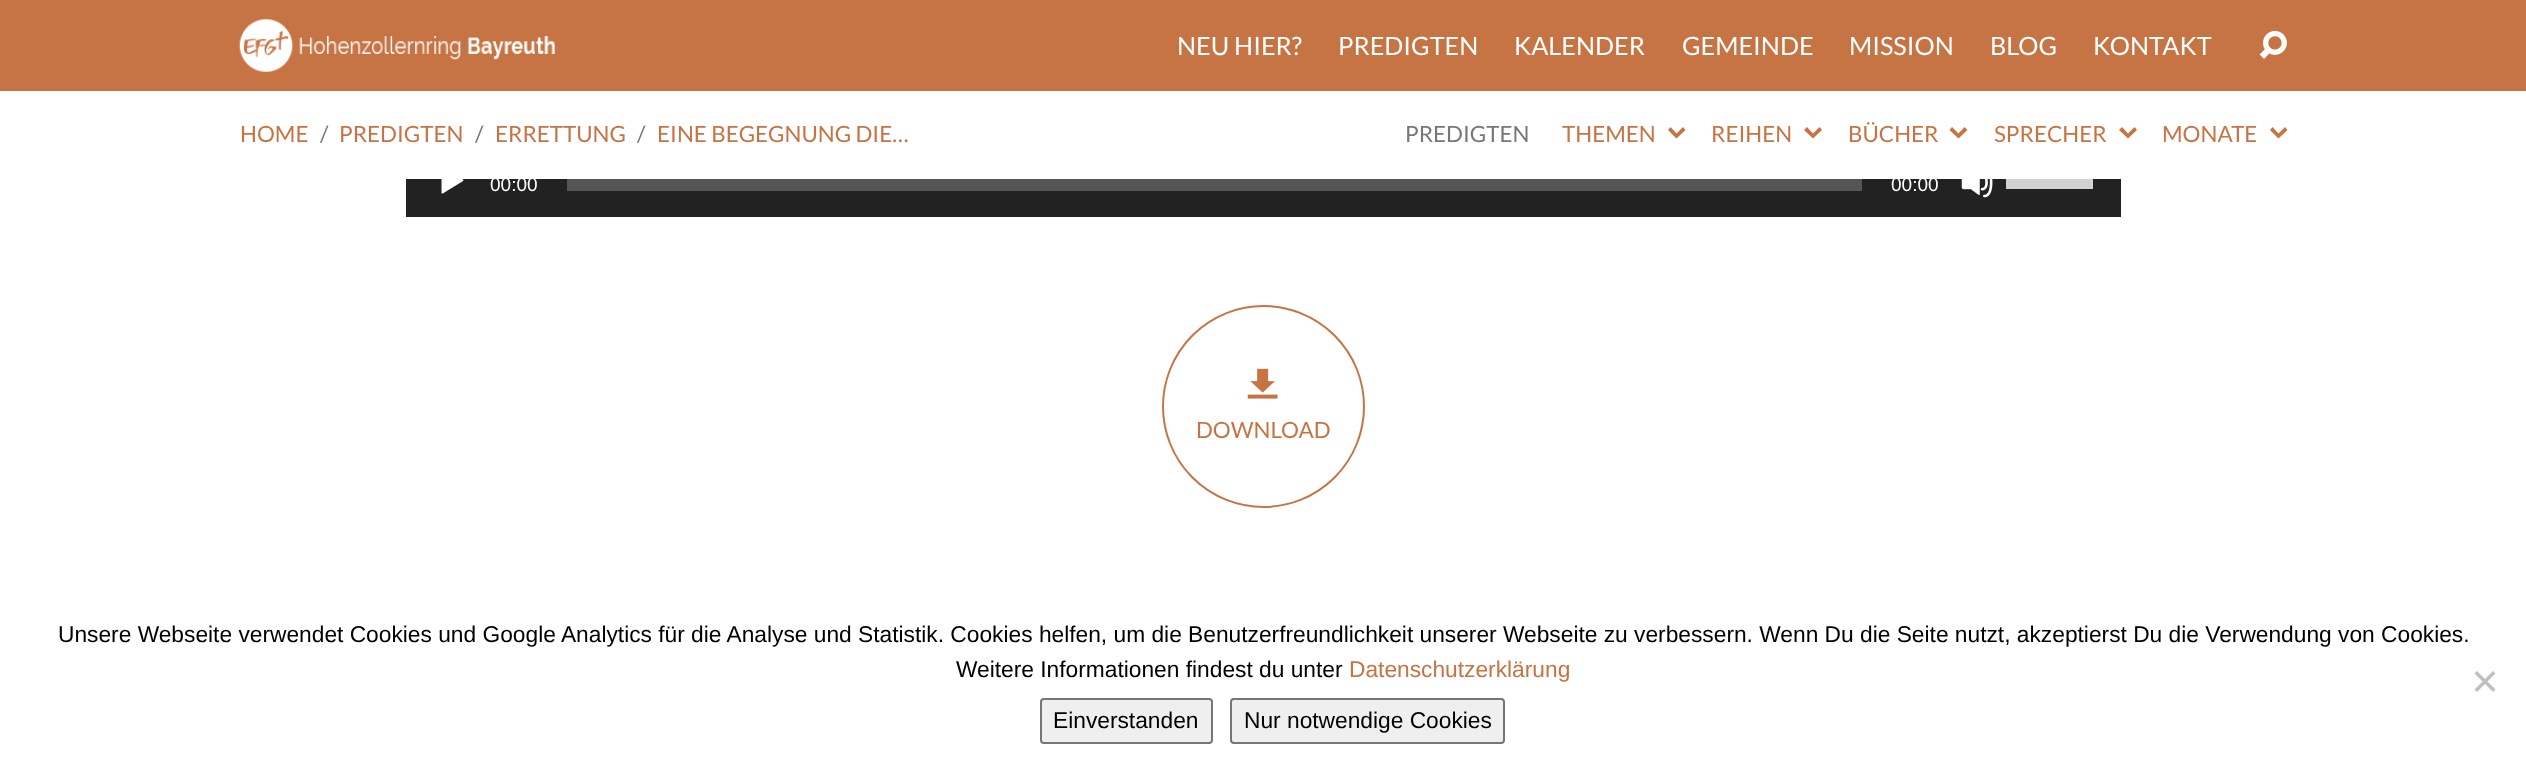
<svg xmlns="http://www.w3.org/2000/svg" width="2526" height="770">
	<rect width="100%" height="100%" fill="#FFFFFF" />
	<rect x="0" y="0" width="2526" height="91" fill="#C77444" />
	<image x="239" y="19" width="316" height="53" href="assets/img1.png" />
	<g font-family="Lato" font-size="25.25" fill="#FFFFFF">
		<text x="1177" y="55">NEU HIER?</text>
		<text x="1338" y="55">PREDIGTEN</text>
		<text x="1514" y="55">KALENDER</text>
		<text x="1682" y="55">GEMEINDE</text>
		<text x="1849" y="55">MISSION</text>
		<text x="1990" y="55">BLOG</text>
		<text x="2093" y="55">KONTAKT</text>
	</g>
	<image x="2259" y="30" width="28" height="29" href="assets/img2.png" />
	<text x="240" y="142" font-family="Lato" font-size="22.4" fill="#C77444">HOME</text>
	<text x="320" y="142" font-family="Lato" font-size="22.4" fill="#777777">/</text>
	<text x="339" y="142" font-family="Lato" font-size="22.4" fill="#C77444">PREDIGTEN</text>
	<text x="475" y="142" font-family="Lato" font-size="22.4" fill="#777777">/</text>
	<text x="495" y="142" font-family="Lato" font-size="22.4" fill="#C77444">ERRETTUNG</text>
	<text x="637" y="142" font-family="Lato" font-size="22.4" fill="#777777">/</text>
	<text x="657" y="142" font-family="Lato" font-size="22.4" fill="#C77444">EINE BEGEGNUNG DIE…</text>
	<text x="1405" y="142" font-family="Lato" font-size="22.4" fill="#777777">PREDIGTEN</text>
	<text x="1562" y="142" font-family="Lato" font-size="22.4" fill="#C77444">THEMEN</text>
	<path d="M1676.5 138.5L1668 130L1670.5 127L1676.5 133.5L1683 127L1685.5 130Z" fill="#C77444" />
	<text x="1711" y="142" font-family="Lato" font-size="22.4" fill="#C77444">REIHEN</text>
	<path d="M1813 138.5L1804 130L1807 127L1813 133.5L1819.5 127L1822 130Z" fill="#C77444" />
	<text x="1848" y="142" font-family="Lato" font-size="22.4" fill="#C77444">BÜCHER</text>
	<path d="M1958.5 138.5L1949.5 130L1952 127L1958.5 133.5L1964.5 127L1967.5 130Z" fill="#C77444" />
	<text x="1994" y="142" font-family="Lato" font-size="22.4" fill="#C77444">SPRECHER</text>
	<path d="M2128 138.5L2119 130L2122 127L2128 133.5L2134.5 127L2137 130Z" fill="#C77444" />
	<text x="2162" y="142" font-family="Lato" font-size="22.4" fill="#C77444">MONATE</text>
	<path d="M2278.5 138.5L2270 130L2272.5 127L2278.5 133.5L2285 127L2287.5 130Z" fill="#C77444" />
	<rect x="406" y="179" width="1715" height="38" fill="#222222" />
	<image x="441" y="179" width="23" height="15" href="assets/img3.png" />
	<text x="490" y="191" font-family="Liberation Sans" font-size="19" fill="#FFFFFF">00:00</text>
	<rect x="567" y="179" width="1295" height="12" fill="#555555" />
	<text x="1891" y="191" font-family="Liberation Sans" font-size="19" fill="#FFFFFF">00:00</text>
	<image x="1961" y="179" width="32" height="19" href="assets/img4.png" />
	<rect x="2006" y="179" width="87" height="10" fill="#D2D2D2" />
	<circle cx="1263.5" cy="406.5" r="100.5" fill="none" stroke="#C77444" stroke-width="2" />
	<image x="1247" y="368" width="31" height="31" href="assets/img5.png" />
	<text x="1196" y="438" font-family="Lato" font-size="22.4" fill="#C77444">DOWNLOAD</text>
	<g font-family="Liberation Sans" font-size="22.75" fill="#000000">
		<text x="58" y="642">Unsere Webseite verwendet Cookies und Google Analytics für die Analyse und Statistik. Cookies helfen, um die Benutzerfreundlichkeit unserer Webseite zu verbessern. Wenn Du die Seite nutzt, akzeptierst Du die Verwendung von Cookies.</text>
		<text x="956" y="677">Weitere Informationen findest du unter</text>
	</g>
	<text x="1349" y="677" font-family="Liberation Sans" font-size="22.75" fill="#C77444">Datenschutzerklärung</text>
	<path d="M2493 671L2495.5 673.5L2477 692L2474.5 689.5Z" fill="#C0C0C0" />
	<path d="M2474.5 673.5L2477 671L2495.5 689.5L2493 692Z" fill="#C0C0C0" />
	<rect x="1041" y="699" width="171" height="44" rx="3" fill="#EFEFEF" stroke="#767676" stroke-width="2" />
	<text x="1053" y="728" font-family="Liberation Sans" font-size="22.75" fill="#000000">Einverstanden</text>
	<rect x="1231" y="699" width="273" height="44" rx="3" fill="#EFEFEF" stroke="#767676" stroke-width="2" />
	<text x="1244" y="728" font-family="Liberation Sans" font-size="22.75" fill="#000000">Nur notwendige Cookies</text>
</svg>
